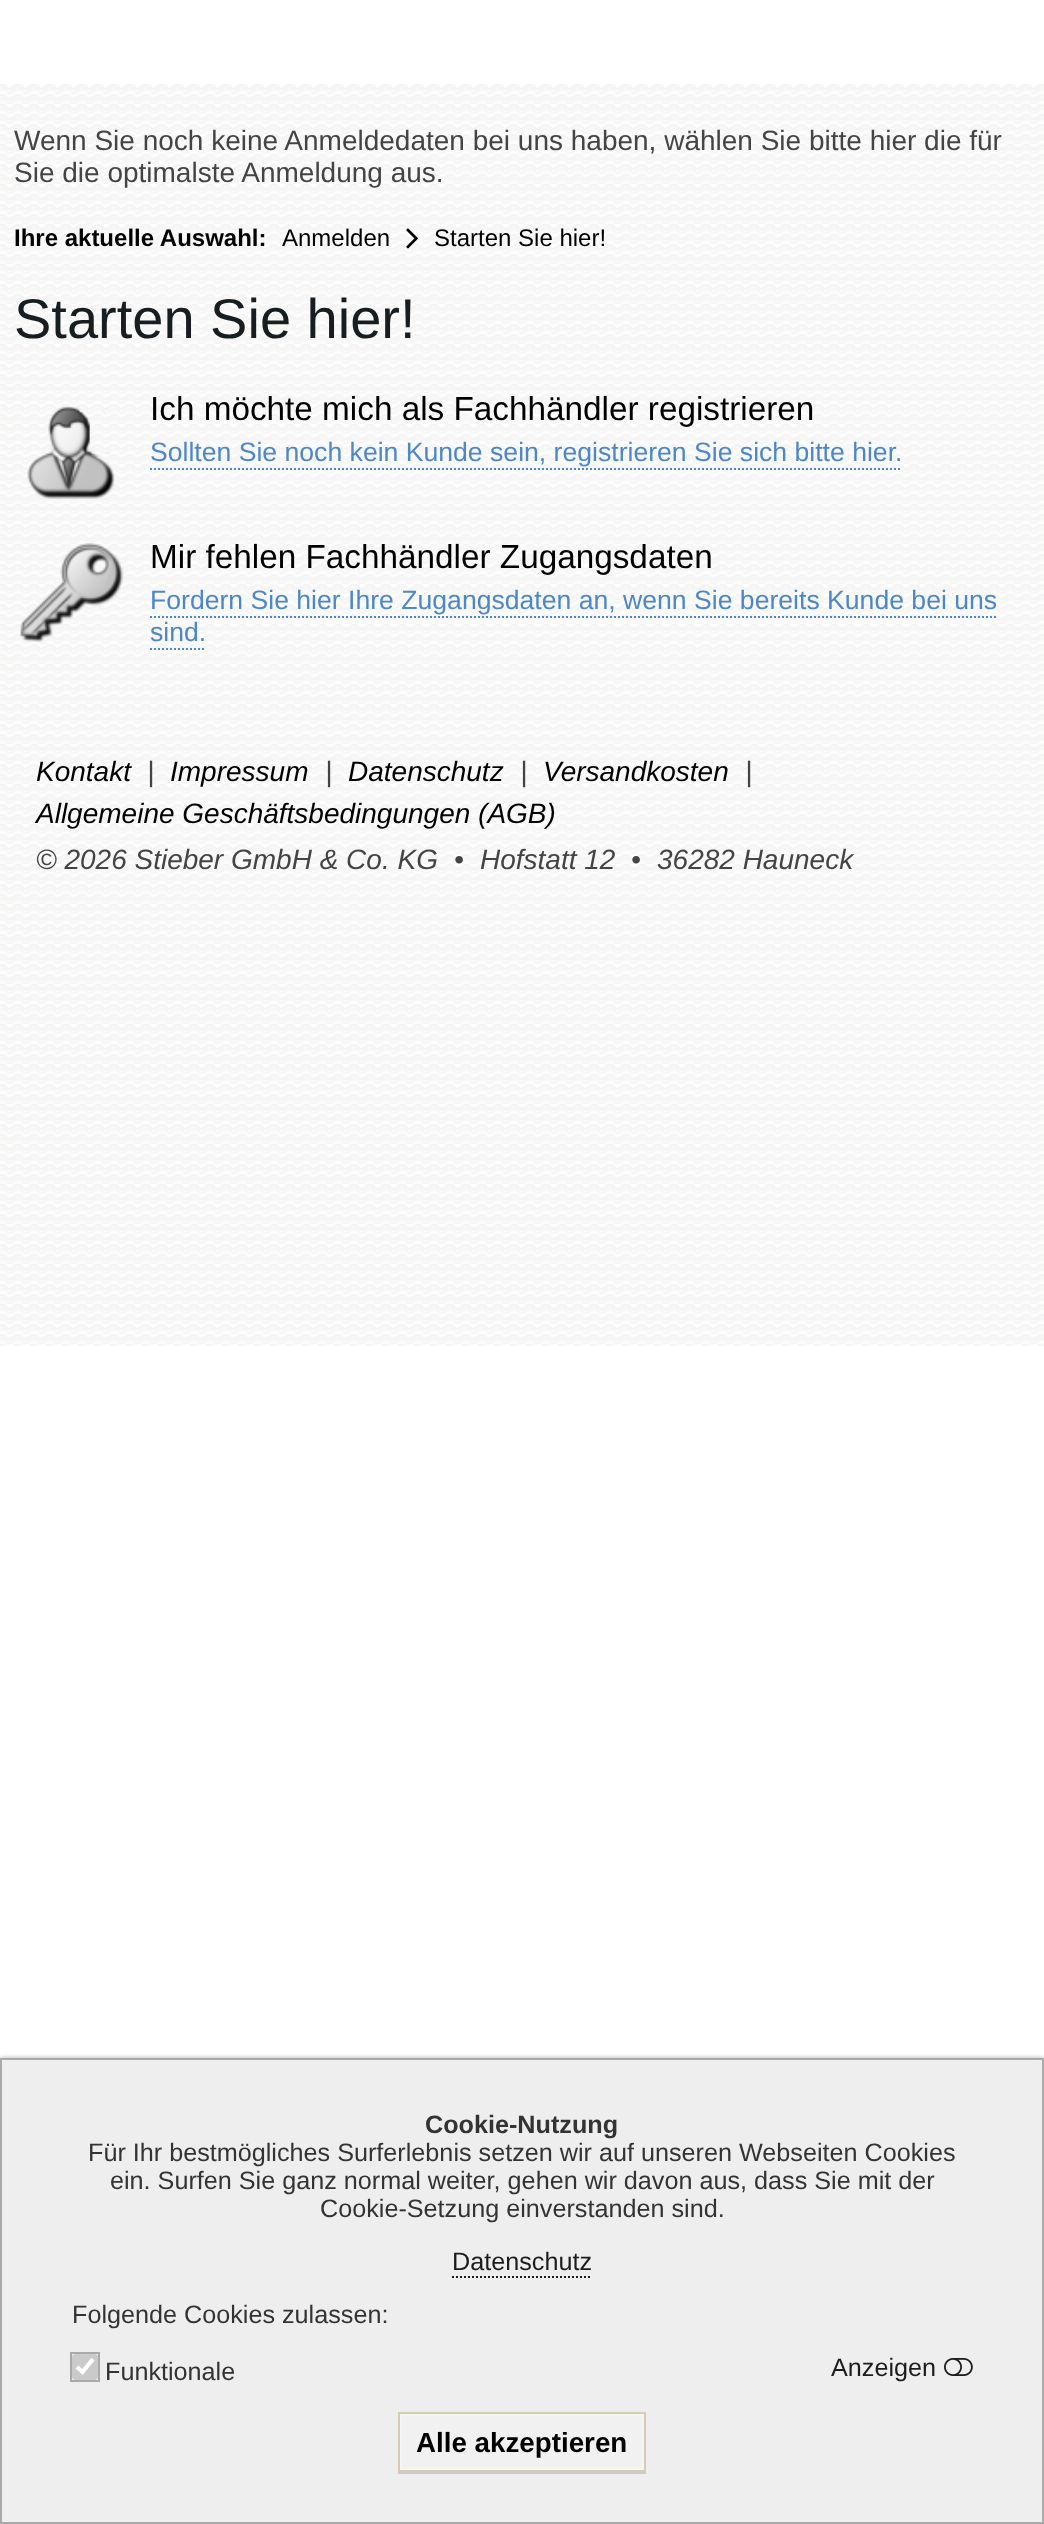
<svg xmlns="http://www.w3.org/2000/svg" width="1044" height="2524">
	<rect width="100%" height="100%" fill="#FFFFFF" />
	<image x="0" y="84" width="1044" height="1262" href="assets/img1.png" />
	<g font-family="Liberation Sans" font-size="28" fill="#444444">
		<text x="14" y="150">Wenn Sie noch keine Anmeldedaten bei uns haben, wählen Sie bitte hier die für</text>
		<text x="14" y="182">Sie die optimalste Anmeldung aus.</text>
	</g>
	<text x="14" y="246" font-family="Liberation Sans" font-size="24" font-weight="700" fill="#000000">Ihre aktuelle Auswahl:</text>
	<text x="282" y="246" font-family="Liberation Sans" font-size="24" fill="#000000">Anmelden</text>
	<image x="406" y="228" width="12" height="21" href="assets/img2.png" />
	<text x="434" y="246" font-family="Liberation Sans" font-size="24" fill="#000000">Starten Sie hier!</text>
	<text x="14" y="338" font-family="Liberation Sans" font-size="56" fill="#161E21">Starten Sie hier!</text>
	<image x="27" y="406" width="88" height="93" href="assets/img3.png" />
	<text x="150" y="420" font-family="Liberation Sans" font-size="33.3" fill="#000000">Ich möchte mich als Fachhändler registrieren</text>
	<text x="150" y="461" font-family="Liberation Sans" font-size="26.6" fill="#4D87C7">Sollten Sie noch kein Kunde sein, registrieren Sie sich bitte hier.</text>
	<path d="M150 469H902" fill="none" stroke="#4D87C7" stroke-width="2" stroke-dasharray="2 2" />
	<image x="19" y="543" width="105" height="99" href="assets/img4.png" />
	<text x="150" y="568" font-family="Liberation Sans" font-size="33.3" fill="#000000">Mir fehlen Fachhändler Zugangsdaten</text>
	<g font-family="Liberation Sans" font-size="26.6" fill="#4D87C7">
		<text x="150" y="609">Fordern Sie hier Ihre Zugangsdaten an, wenn Sie bereits Kunde bei uns</text>
		<text x="150" y="641">sind.</text>
	</g>
	<path d="M150 617H998" fill="none" stroke="#4D87C7" stroke-width="2" stroke-dasharray="2 2" />
	<path d="M150 649H206" fill="none" stroke="#4D87C7" stroke-width="2" stroke-dasharray="2 2" />
	<text x="36" y="781" font-family="Liberation Sans" font-size="28" font-style="italic" fill="#000000">Kontakt</text>
	<text x="147" y="781" font-family="Liberation Sans" font-size="28" font-style="italic" fill="#444444">|</text>
	<text x="170" y="781" font-family="Liberation Sans" font-size="28" font-style="italic" fill="#000000">Impressum</text>
	<text x="325" y="781" font-family="Liberation Sans" font-size="28" font-style="italic" fill="#444444">|</text>
	<text x="348" y="781" font-family="Liberation Sans" font-size="28" font-style="italic" fill="#000000">Datenschutz</text>
	<text x="520" y="781" font-family="Liberation Sans" font-size="28" font-style="italic" fill="#444444">|</text>
	<text x="543" y="781" font-family="Liberation Sans" font-size="28" font-style="italic" fill="#000000">Versandkosten</text>
	<text x="745" y="781" font-family="Liberation Sans" font-size="28" font-style="italic" fill="#444444">|</text>
	<text x="36" y="823" font-family="Liberation Sans" font-size="28" font-style="italic" fill="#000000">Allgemeine Geschäftsbedingungen (AGB)</text>
	<g font-family="Liberation Sans" font-size="28" font-style="italic" fill="#444444">
		<text x="36" y="869">© 2026 Stieber GmbH &amp; Co. KG</text>
		<text x="454" y="869">•</text>
		<text x="480" y="869">Hofstatt 12</text>
		<text x="631" y="869">•</text>
		<text x="657" y="869">36282 Hauneck</text>
	</g>
	<rect x="0" y="2058" width="1044" height="466" fill="#AAAAAA" filter="blur(2px)" />
	<rect x="1" y="2059" width="1042" height="464" fill="#EEEEEE" stroke="#AAAAAA" stroke-width="2" />
	<text x="425" y="2133" font-family="Liberation Sans" font-size="25.2" font-weight="700" fill="#333333">Cookie-Nutzung</text>
	<g font-family="Liberation Sans" font-size="25.2" fill="#333333">
		<text x="88" y="2161">Für Ihr bestmögliches Surferlebnis setzen wir auf unseren Webseiten Cookies</text>
		<text x="110" y="2189">ein. Surfen Sie ganz normal weiter, gehen wir davon aus, dass Sie mit der</text>
		<text x="320" y="2217">Cookie-Setzung einverstanden sind.</text>
	</g>
	<text x="452" y="2270" font-family="Liberation Sans" font-size="25.2" fill="#1E1B1D">Datenschutz</text>
	<path d="M452 2277H592" fill="none" stroke="#1E1B1D" stroke-width="2" stroke-dasharray="2 2" />
	<text x="72" y="2323" font-family="Liberation Sans" font-size="25.2" fill="#333333">Folgende Cookies zulassen:</text>
	<rect x="72" y="2354" width="26" height="26" rx="4" fill="#CACACA" />
	<path d="M77 2367L82.5 2372L93 2359" fill="none" stroke="#FFFFFF" stroke-width="4.2" />
	<rect x="71" y="2353" width="28" height="28" fill="none" stroke="#AAAAAA" stroke-width="2" />
	<text x="105" y="2380" font-family="Liberation Sans" font-size="25.2" fill="#333333">Funktionale</text>
	<text x="831" y="2376" font-family="Liberation Sans" font-size="25.2" fill="#1E1B1D">Anzeigen</text>
	<image x="944" y="2358" width="29" height="18" href="assets/img5.png" />
	<rect x="398" y="2472" width="248" height="2" fill="#CACACA" />
	<rect x="401" y="2415" width="242" height="54" fill="#F1F1F1" stroke="#F5F5F5" stroke-width="2" />
	<rect x="399" y="2413" width="246" height="58" fill="none" stroke="#D7CCB0" stroke-width="2" />
	<text x="416" y="2452" font-family="Liberation Sans" font-size="27.75" font-weight="700" fill="#000000">Alle akzeptieren</text>
</svg>
